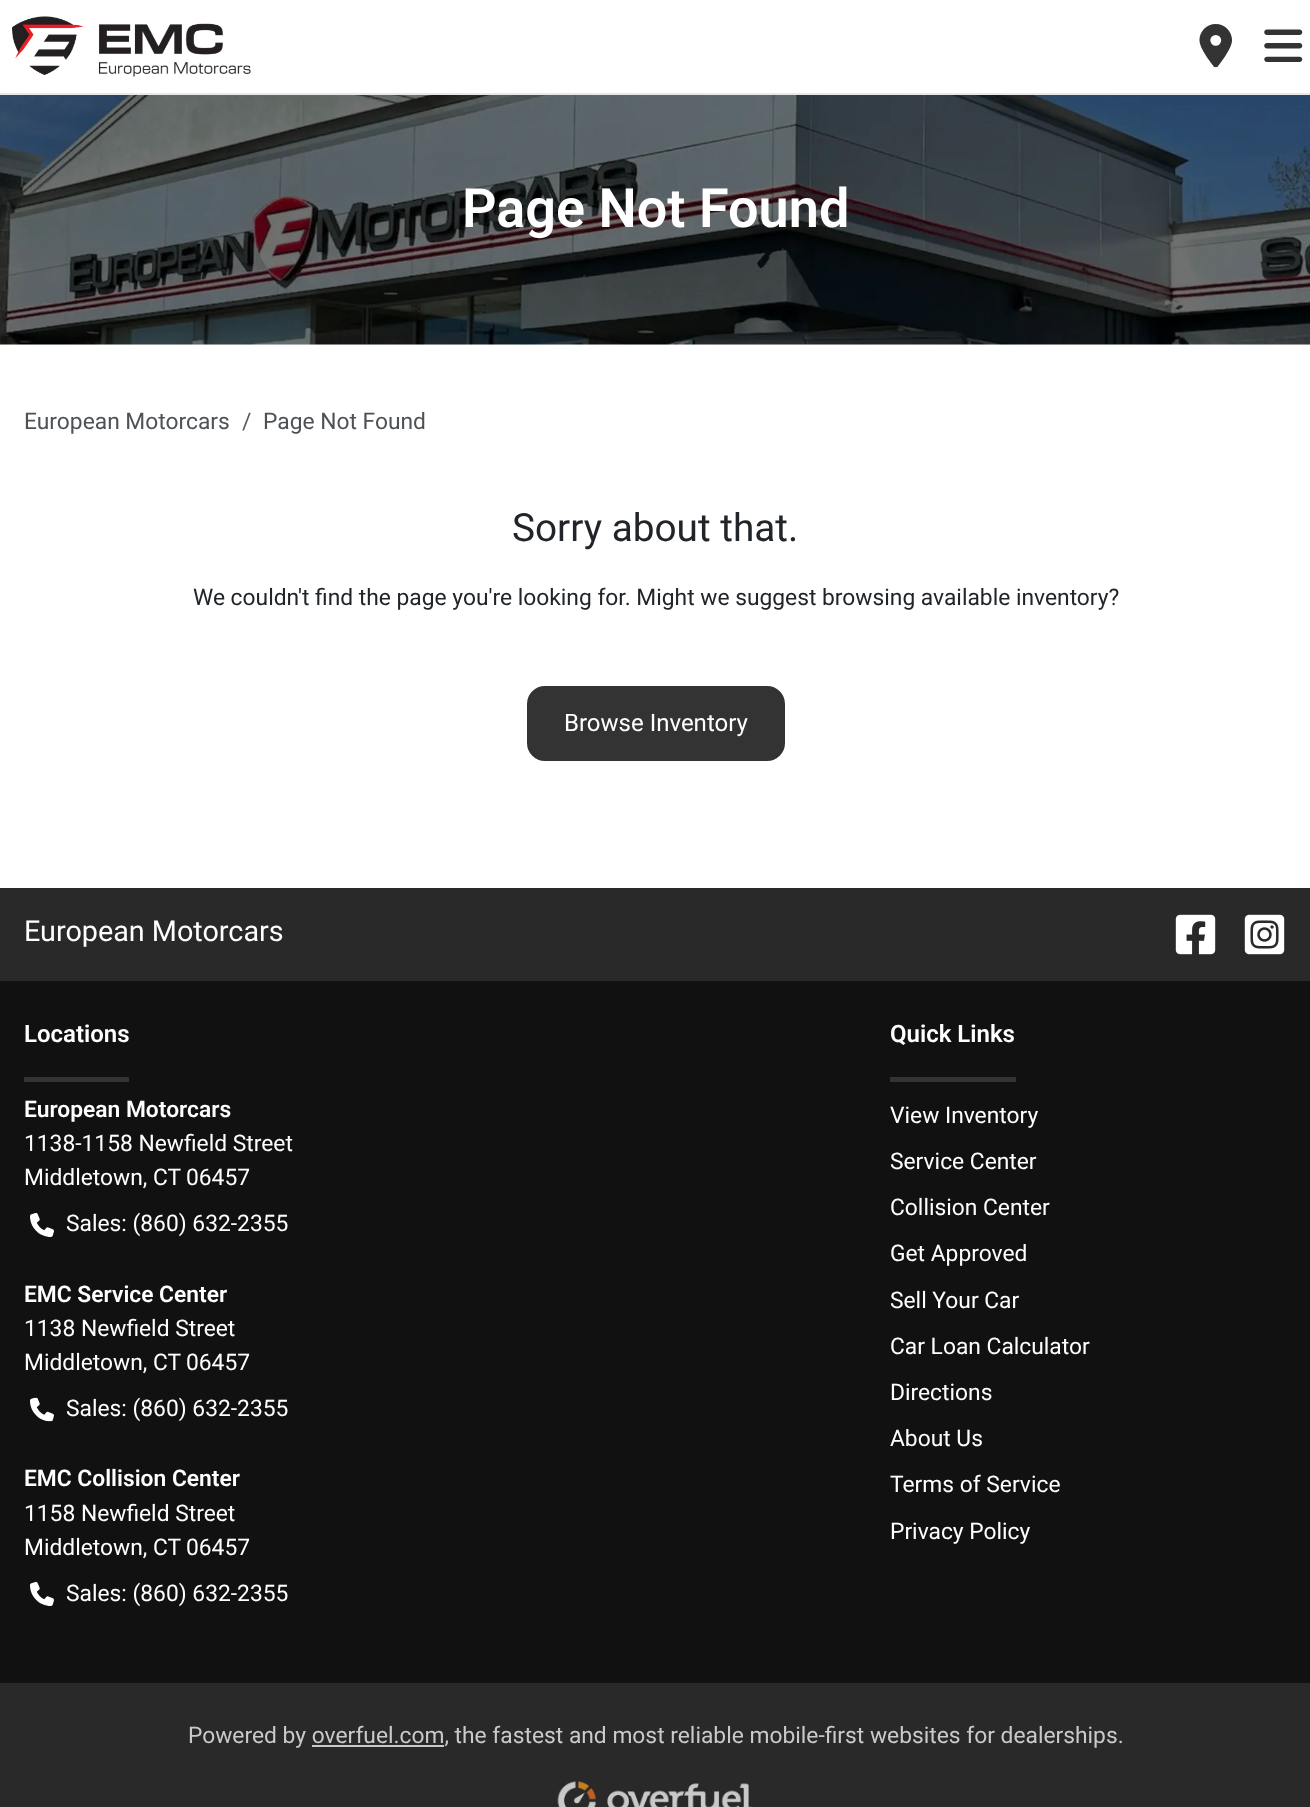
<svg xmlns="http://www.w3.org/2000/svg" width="1310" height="1807">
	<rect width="100%" height="100%" fill="#F5F5F5" />
	<rect x="0" y="0" width="1310" height="93" fill="#FFFFFF" />
	<rect x="0" y="93" width="1310" height="2" fill="#E8E8E9" />
	<image x="12" y="16" width="239" height="61" href="assets/img1.png" />
	<image x="1199" y="24" width="33" height="44" href="assets/img2.png" />
	<image x="1264" y="29" width="39" height="33" href="assets/img3.png" />
	<image x="0" y="95" width="1310" height="250" href="assets/img4.png" />
	<text x="462" y="227" font-family="Roboto" font-size="54" font-weight="600" fill="#FFFFFF">Page Not Found</text>
	<rect x="0" y="345" width="1310" height="543" fill="#FFFFFF" />
	<text x="24" y="429" font-family="Roboto" font-size="22.8" fill="#4E5155">European Motorcars</text>
	<text x="242" y="429" font-family="Roboto" font-size="22.8" fill="#595C5F">/</text>
	<text x="263" y="429" font-family="Roboto" font-size="22.8" fill="#4E5155">Page Not Found</text>
	<text x="512" y="541" font-family="Roboto" font-size="38.75" fill="#212529">Sorry about that.</text>
	<text x="193" y="605" font-family="Roboto" font-size="22.8" fill="#212529">We couldn't find the page you're looking for. Might we suggest browsing available inventory?</text>
	<rect x="528" y="687" width="256" height="73" rx="17" fill="#333333" stroke="#333333" stroke-width="2" />
	<text x="564" y="731" font-family="Roboto" font-size="24" fill="#FFFFFF">Browse Inventory</text>
	<rect x="0" y="981" width="1310" height="702" fill="#111111" />
	<rect x="0" y="888" width="1310" height="93" fill="#292929" />
	<text x="24" y="941" font-family="Roboto" font-size="28.75" fill="#FFFFFF">European Motorcars</text>
	<image x="1175" y="914" width="41" height="41" href="assets/img5.png" />
	<image x="1244" y="914" width="41" height="41" href="assets/img6.png" />
	<rect x="24" y="1077" width="105" height="5" fill="#333333" />
	<text x="24" y="1042" font-family="Roboto" font-size="24" font-weight="600" fill="#FFFFFF">Locations</text>
	<text x="24" y="1117" font-family="Roboto" font-size="22.8" font-weight="600" fill="#FFFFFF">European Motorcars</text>
	<g font-family="Roboto" font-size="22.8" fill="#FFFFFF">
		<text x="24" y="1151">1138-1158 Newfield Street</text>
		<text x="24" y="1185">Middletown, CT</text>
		<text x="186" y="1185">06457</text>
	</g>
	<image x="30" y="1213" width="24" height="24" href="assets/img7.png" />
	<text x="66" y="1231" font-family="Roboto" font-size="22.8" fill="#FFFFFF">Sales: (860) 632-2355</text>
	<text x="24" y="1302" font-family="Roboto" font-size="22.8" font-weight="600" fill="#FFFFFF">EMC Service Center</text>
	<g font-family="Roboto" font-size="22.8" fill="#FFFFFF">
		<text x="24" y="1336">1138 Newfield Street</text>
		<text x="24" y="1370">Middletown, CT</text>
		<text x="186" y="1370">06457</text>
	</g>
	<image x="30" y="1397" width="24" height="25" href="assets/img8.png" />
	<text x="66" y="1416" font-family="Roboto" font-size="22.8" fill="#FFFFFF">Sales: (860) 632-2355</text>
	<text x="24" y="1486" font-family="Roboto" font-size="22.8" font-weight="600" fill="#FFFFFF">EMC Collision Center</text>
	<g font-family="Roboto" font-size="22.8" fill="#FFFFFF">
		<text x="24" y="1521">1158 Newfield Street</text>
		<text x="24" y="1555">Middletown, CT</text>
		<text x="186" y="1555">06457</text>
	</g>
	<image x="30" y="1582" width="24" height="24" href="assets/img9.png" />
	<text x="66" y="1601" font-family="Roboto" font-size="22.8" fill="#FFFFFF">Sales: (860) 632-2355</text>
	<rect x="890" y="1077" width="126" height="5" fill="#333333" />
	<text x="890" y="1042" font-family="Roboto" font-size="24" font-weight="600" fill="#FFFFFF">Quick Links</text>
	<g font-family="Roboto" font-size="22.8" fill="#FFFFFF">
		<text x="890" y="1123">View Inventory</text>
		<text x="890" y="1169">Service Center</text>
		<text x="890" y="1215">Collision Center</text>
		<text x="890" y="1261">Get Approved</text>
		<text x="890" y="1308">Sell Your Car</text>
		<text x="890" y="1354">Car Loan Calculator</text>
		<text x="890" y="1400">Directions</text>
		<text x="890" y="1446">About Us</text>
		<text x="890" y="1492">Terms of Service</text>
		<text x="890" y="1539">Privacy Policy</text>
	</g>
	<rect x="0" y="1683" width="1310" height="124" fill="#292929" />
	<text x="188" y="1743" font-family="Roboto" font-size="22.8" fill="#CACACA">Powered by overfuel.com, the fastest and most reliable mobile-first websites for dealerships.</text>
	<rect x="312" y="1745" width="132" height="2" fill="#CACACA" />
	<image x="557" y="1781" width="196" height="26" href="assets/img10.png" />
</svg>
